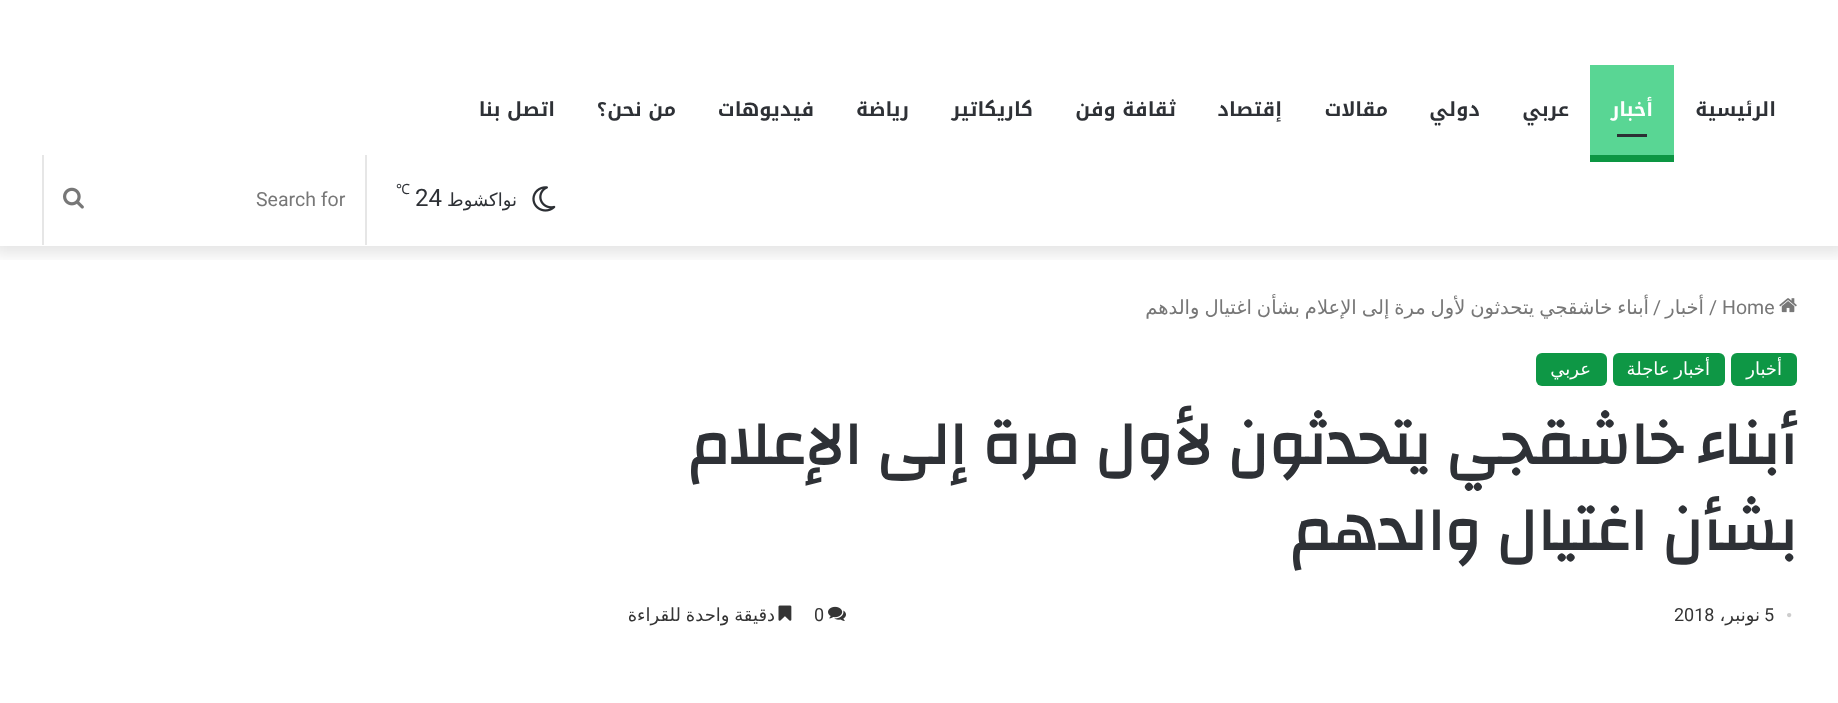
<svg xmlns="http://www.w3.org/2000/svg" width="1838" height="703">
	<defs>
		<clipPath id="clip1"><rect x="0" y="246" width="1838" height="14" /></clipPath>
	</defs>
	<rect width="100%" height="100%" fill="#FFFFFF" />
	<g clip-path="url(#clip1)">
		<rect x="-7" y="-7" width="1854" height="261" fill="#000000" fill-opacity="0.1" filter="blur(7.5px)" />
	</g>
	<text x="1776" y="116" font-family="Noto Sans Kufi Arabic" font-size="19.5" font-weight="700" direction="rtl" fill="#2E3136">الرئيسية</text>
	<rect x="1590" y="155" width="84" height="7" fill="#0C9643" />
	<rect x="1590" y="65" width="84" height="90" fill="#59D694" />
	<text x="1653" y="116" font-family="Noto Sans Kufi Arabic" font-size="19.5" font-weight="700" direction="rtl" fill="#FFFFFF">أخبار</text>
	<rect x="1617" y="134" width="30" height="3" fill="#2C2F34" />
	<g font-family="Noto Sans Kufi Arabic" font-size="19.5" font-weight="700" direction="rtl" fill="#2E3136">
		<text x="1569" y="116">عربي</text>
		<text x="1480" y="116">دولي</text>
		<text x="1388" y="116">مقالات</text>
		<text x="1282" y="116">إقتصاد</text>
		<text x="1176" y="116">ثقافة وفن</text>
		<text x="1033" y="116">كاريكاتير</text>
		<text x="909" y="116">رياضة</text>
		<text x="814" y="116">فيديوهات</text>
		<text x="676" y="116">من نحن؟</text>
		<text x="555" y="116">اتصل بنا</text>
	</g>
	<image x="532" y="186" width="24" height="26" href="assets/img1.png" />
	<text x="517" y="206" font-family="DejaVu Sans" font-size="18" direction="rtl" fill="#2E3136">نواكشوط</text>
	<text x="415" y="206" font-family="Roboto" font-size="24" fill="#2E3136">24</text>
	<text x="396" y="194" font-family="Noto Sans" font-size="14" fill="#2E3136">℃</text>
	<rect x="365" y="155" width="2" height="90" fill="#E6E6E6" />
	<rect x="42" y="155" width="2" height="90" fill="#E6E6E6" />
	<text x="256" y="206" font-family="Roboto" font-size="19.5" fill="#777777">Search for</text>
	<image x="63" y="187" width="21" height="22" href="assets/img2.png" />
	<image x="1779" y="298" width="18" height="15" href="assets/img3.png" />
	<g font-family="Roboto" font-size="19.5" fill="#777777">
		<text x="1722" y="314">Home</text>
		<text x="1709" y="314">/</text>
	</g>
	<text x="1704" y="314" font-family="DejaVu Sans" font-size="19.5" direction="rtl" fill="#777777">أخبار</text>
	<text x="1653" y="314" font-family="Roboto" font-size="19.5" fill="#777777">/</text>
	<text x="1649" y="314" word-spacing="-1.25" font-family="DejaVu Sans" font-size="19.5" direction="rtl" fill="#777777">أبناء خاشقجي يتحدثون لأول مرة إلى الإعلام بشأن اغتيال والدهم</text>
	<rect x="1731" y="353" width="66" height="33" rx="6" fill="#0E9745" />
	<text x="1782" y="375" font-family="DejaVu Sans" font-size="18" direction="rtl" fill="#FFFFFF">أخبار</text>
	<rect x="1613" y="353" width="112" height="33" rx="6" fill="#0E9745" />
	<text x="1710" y="375" word-spacing="-1" font-family="DejaVu Sans" font-size="18" direction="rtl" fill="#FFFFFF">أخبار عاجلة</text>
	<rect x="1536" y="353" width="71" height="33" rx="6" fill="#0E9745" />
	<text x="1591" y="375" font-family="DejaVu Sans" font-size="18" direction="rtl" fill="#FFFFFF">عربي</text>
	<g font-family="Changa" font-size="61.5" font-weight="700" direction="rtl" fill="#2E3136">
		<text x="1797" y="464">أبناء خاشقجي يتحدثون لأول مرة إلى الإعلام</text>
		<text x="1797" y="550">بشأن اغتيال والدهم</text>
	</g>
	<text x="1786" y="621" font-family="Liberation Serif" font-size="18" fill="#CDCDCD">•</text>
	<text x="1764" y="621" font-family="Roboto" font-size="18" fill="#353535">5</text>
	<text x="1760" y="621" font-family="DejaVu Sans" font-size="18" direction="rtl" fill="#353535">نونبر،</text>
	<text x="1674" y="621" font-family="Roboto" font-size="18" fill="#353535">2018</text>
	<image x="828" y="606" width="18" height="15" href="assets/img4.png" />
	<text x="814" y="621" font-family="Roboto" font-size="18" fill="#353535">0</text>
	<image x="778" y="605" width="14" height="16" href="assets/img5.png" />
	<text x="775" y="621" word-spacing="-1" font-family="DejaVu Sans" font-size="18" direction="rtl" fill="#353535">دقيقة واحدة للقراءة</text>
</svg>
